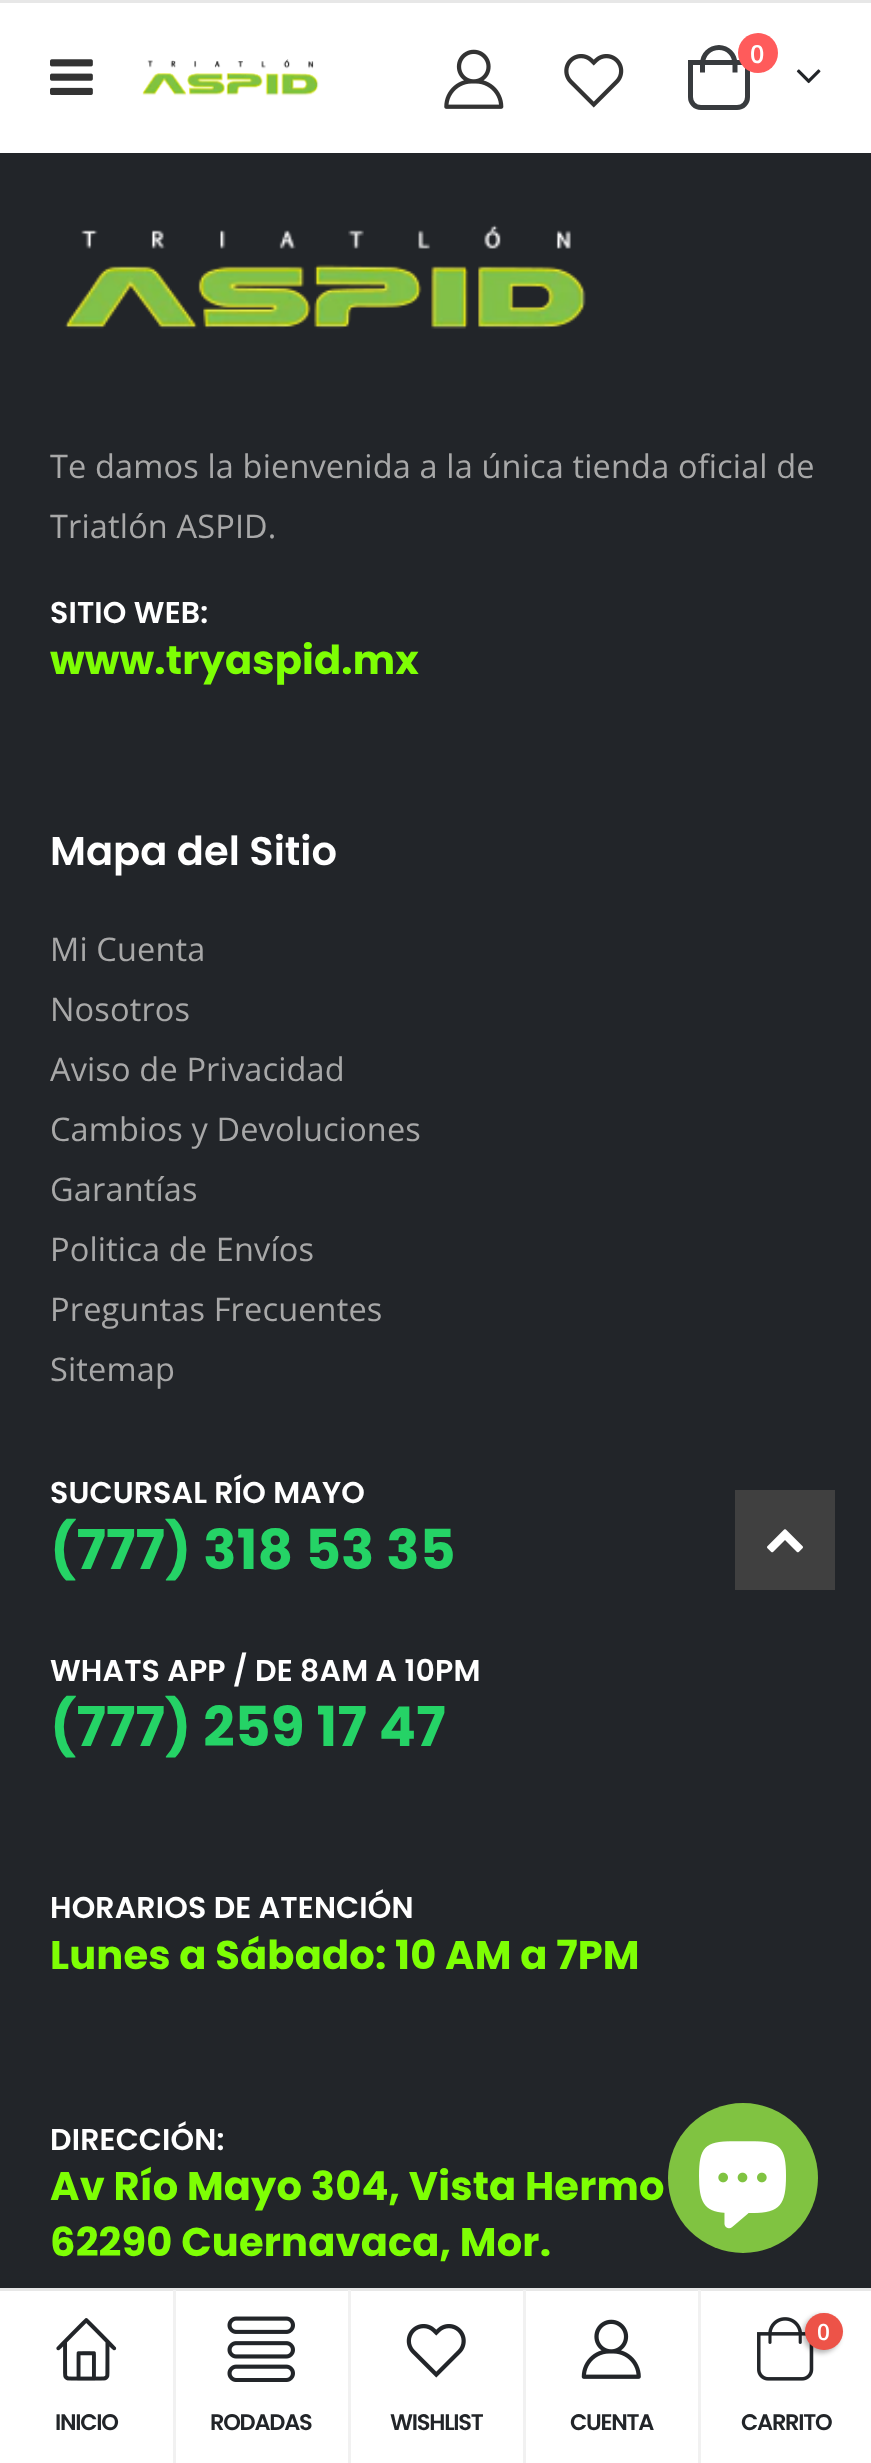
<svg xmlns="http://www.w3.org/2000/svg" width="871" height="2463">
	<rect width="100%" height="100%" fill="#222529" />
	<rect x="0" y="3" width="871" height="150" fill="#FFFFFF" />
	<rect x="0" y="0" width="871" height="3" fill="#E7E7E7" />
	<image x="444" y="49" width="60" height="60" href="assets/img1.png" />
	<image x="564" y="54" width="60" height="54" href="assets/img2.png" />
	<path d="M690.5 62.5H747.5V97C747.5 103 743 107.5 737 107.5H701C695 107.5 690.5 103 690.5 97Z" fill="none" stroke="#383B3E" stroke-width="5" />
	<path d="M719 45C729 45 737.5 53.5 737.5 64V72.5H700V64C700 53.5 708.5 45 719 45ZM719 50C726.5 50 732.5 56 732.5 64V72.5H705V64C705 56 711 50 719 50Z" fill="#383B3E" fill-rule="evenodd" />
	<circle cx="758" cy="53" r="20" fill="#FF5B5B" />
	<text x="750" y="63" font-family="Open Sans" font-size="25" font-weight="600" fill="#FFFFFF">0</text>
	<image x="796" y="69" width="25" height="15" href="assets/img3.png" />
	<image x="50" y="59" width="43" height="36" href="assets/img4.png" />
	<image x="142" y="59" width="177" height="37" href="assets/img5.png" />
	<image x="64" y="224" width="522" height="105" href="assets/img6.png" />
	<g font-family="Open Sans" font-size="32.5" letter-spacing="0.15" fill="#A8A8A8">
		<text x="50" y="478">Te damos la bienvenida a la única tienda oficial de</text>
		<text x="50" y="538">Triatlón ASPID.</text>
	</g>
	<text x="50" y="623" font-family="Poppins" font-size="30" font-weight="600" letter-spacing="0.15" fill="#FFFFFF">SITIO WEB:</text>
	<text x="50" y="674" font-family="Poppins" font-size="40" font-weight="700" letter-spacing="0.15" fill="#7EFF04">www.tryaspid.mx</text>
	<text x="50" y="865" font-family="Poppins" font-size="40" font-weight="600" fill="#FFFFFF">Mapa del Sitio</text>
	<g font-family="Open Sans" font-size="32.5" letter-spacing="0.15" fill="#A8A8A8">
		<text x="50" y="961">Mi Cuenta</text>
		<text x="50" y="1021">Nosotros</text>
		<text x="50" y="1081">Aviso de Privacidad</text>
		<text x="50" y="1141">Cambios y Devoluciones</text>
		<text x="50" y="1201">Garantías</text>
		<text x="50" y="1261">Politica de Envíos</text>
		<text x="50" y="1321">Preguntas Frecuentes</text>
		<text x="50" y="1381">Sitemap</text>
	</g>
	<text x="50" y="1503" font-family="Poppins" font-size="30" font-weight="600" letter-spacing="0.15" fill="#FFFFFF">SUCURSAL RÍO MAYO</text>
	<text x="50" y="1569" font-family="Poppins" font-size="55" font-weight="700" letter-spacing="0.15" fill="#25D366">(777) 318 53 35</text>
	<text x="50" y="1681" font-family="Poppins" font-size="30" font-weight="600" letter-spacing="0.15" fill="#FFFFFF">WHATS APP / DE 8AM A 10PM</text>
	<text x="50" y="1746" font-family="Poppins" font-size="55" font-weight="700" letter-spacing="0.15" fill="#25D366">(777) 259 17 47</text>
	<text x="50" y="1918" font-family="Poppins" font-size="30" font-weight="600" letter-spacing="0.15" fill="#FFFFFF">HORARIOS DE ATENCIÓN</text>
	<text x="50" y="1969" font-family="Poppins" font-size="40" font-weight="700" letter-spacing="0.15" fill="#7EFF04">Lunes a Sábado: 10 AM a 7PM</text>
	<text x="50" y="2150" font-family="Poppins" font-size="30" font-weight="600" letter-spacing="0.15" fill="#FFFFFF">DIRECCIÓN:</text>
	<g font-family="Poppins" font-size="40" font-weight="700" letter-spacing="0.15" fill="#7EFF04">
		<text x="50" y="2200">Av Río Mayo 304, Vista Hermo</text>
		<text x="50" y="2256">62290 Cuernavaca, Mor.</text>
	</g>
	<rect x="735" y="1490" width="100" height="100" fill="#404040" />
	<image x="767" y="1529" width="36" height="24" href="assets/img7.png" />
	<rect x="0" y="2291" width="871" height="172" fill="#FFFFFF" />
	<rect x="0" y="2288" width="871" height="3" fill="#E7E7E7" />
	<image x="56" y="2318" width="61" height="63" href="assets/img8.png" />
	<text x="55" y="2430" font-family="Poppins" font-size="22.5" font-weight="600" letter-spacing="-1.25" fill="#222529">INICIO</text>
	<rect x="173" y="2290" width="3" height="173" fill="#F1F1F1" />
	<image x="227" y="2316" width="68" height="66" href="assets/img9.png" />
	<text x="210" y="2430" font-family="Poppins" font-size="22.5" font-weight="600" letter-spacing="-1.25" fill="#222529">RODADAS</text>
	<rect x="348" y="2290" width="3" height="173" fill="#F1F1F1" />
	<image x="406" y="2324" width="60" height="54" href="assets/img10.png" />
	<text x="390" y="2430" font-family="Poppins" font-size="22.5" font-weight="600" letter-spacing="-1.25" fill="#222529">WISHLIST</text>
	<rect x="523" y="2290" width="3" height="173" fill="#F1F1F1" />
	<image x="581" y="2319" width="60" height="60" href="assets/img11.png" />
	<text x="570" y="2430" font-family="Poppins" font-size="22.5" font-weight="600" letter-spacing="-1.25" fill="#222529">CUENTA</text>
	<rect x="698" y="2290" width="3" height="173" fill="#F1F1F1" />
	<image x="757" y="2317" width="57" height="64" href="assets/img12.png" />
	<rect x="803" y="2315" width="37" height="38" rx="18.5" fill="#000000" fill-opacity="0.3" filter="blur(2.5px)" />
	<rect x="805" y="2313" width="38" height="37" rx="18.5" fill="#ED5348" />
	<text x="817" y="2340" font-family="Open Sans" font-size="22.5" font-weight="600" fill="#FFFFFF">0</text>
	<text x="741" y="2430" font-family="Poppins" font-size="22.5" font-weight="600" letter-spacing="-1.25" fill="#222529">CARRITO</text>
	<circle cx="743" cy="2178" r="75" fill="#80C341" />
	<image x="699" y="2141" width="87" height="88" href="assets/img13.png" />
</svg>
